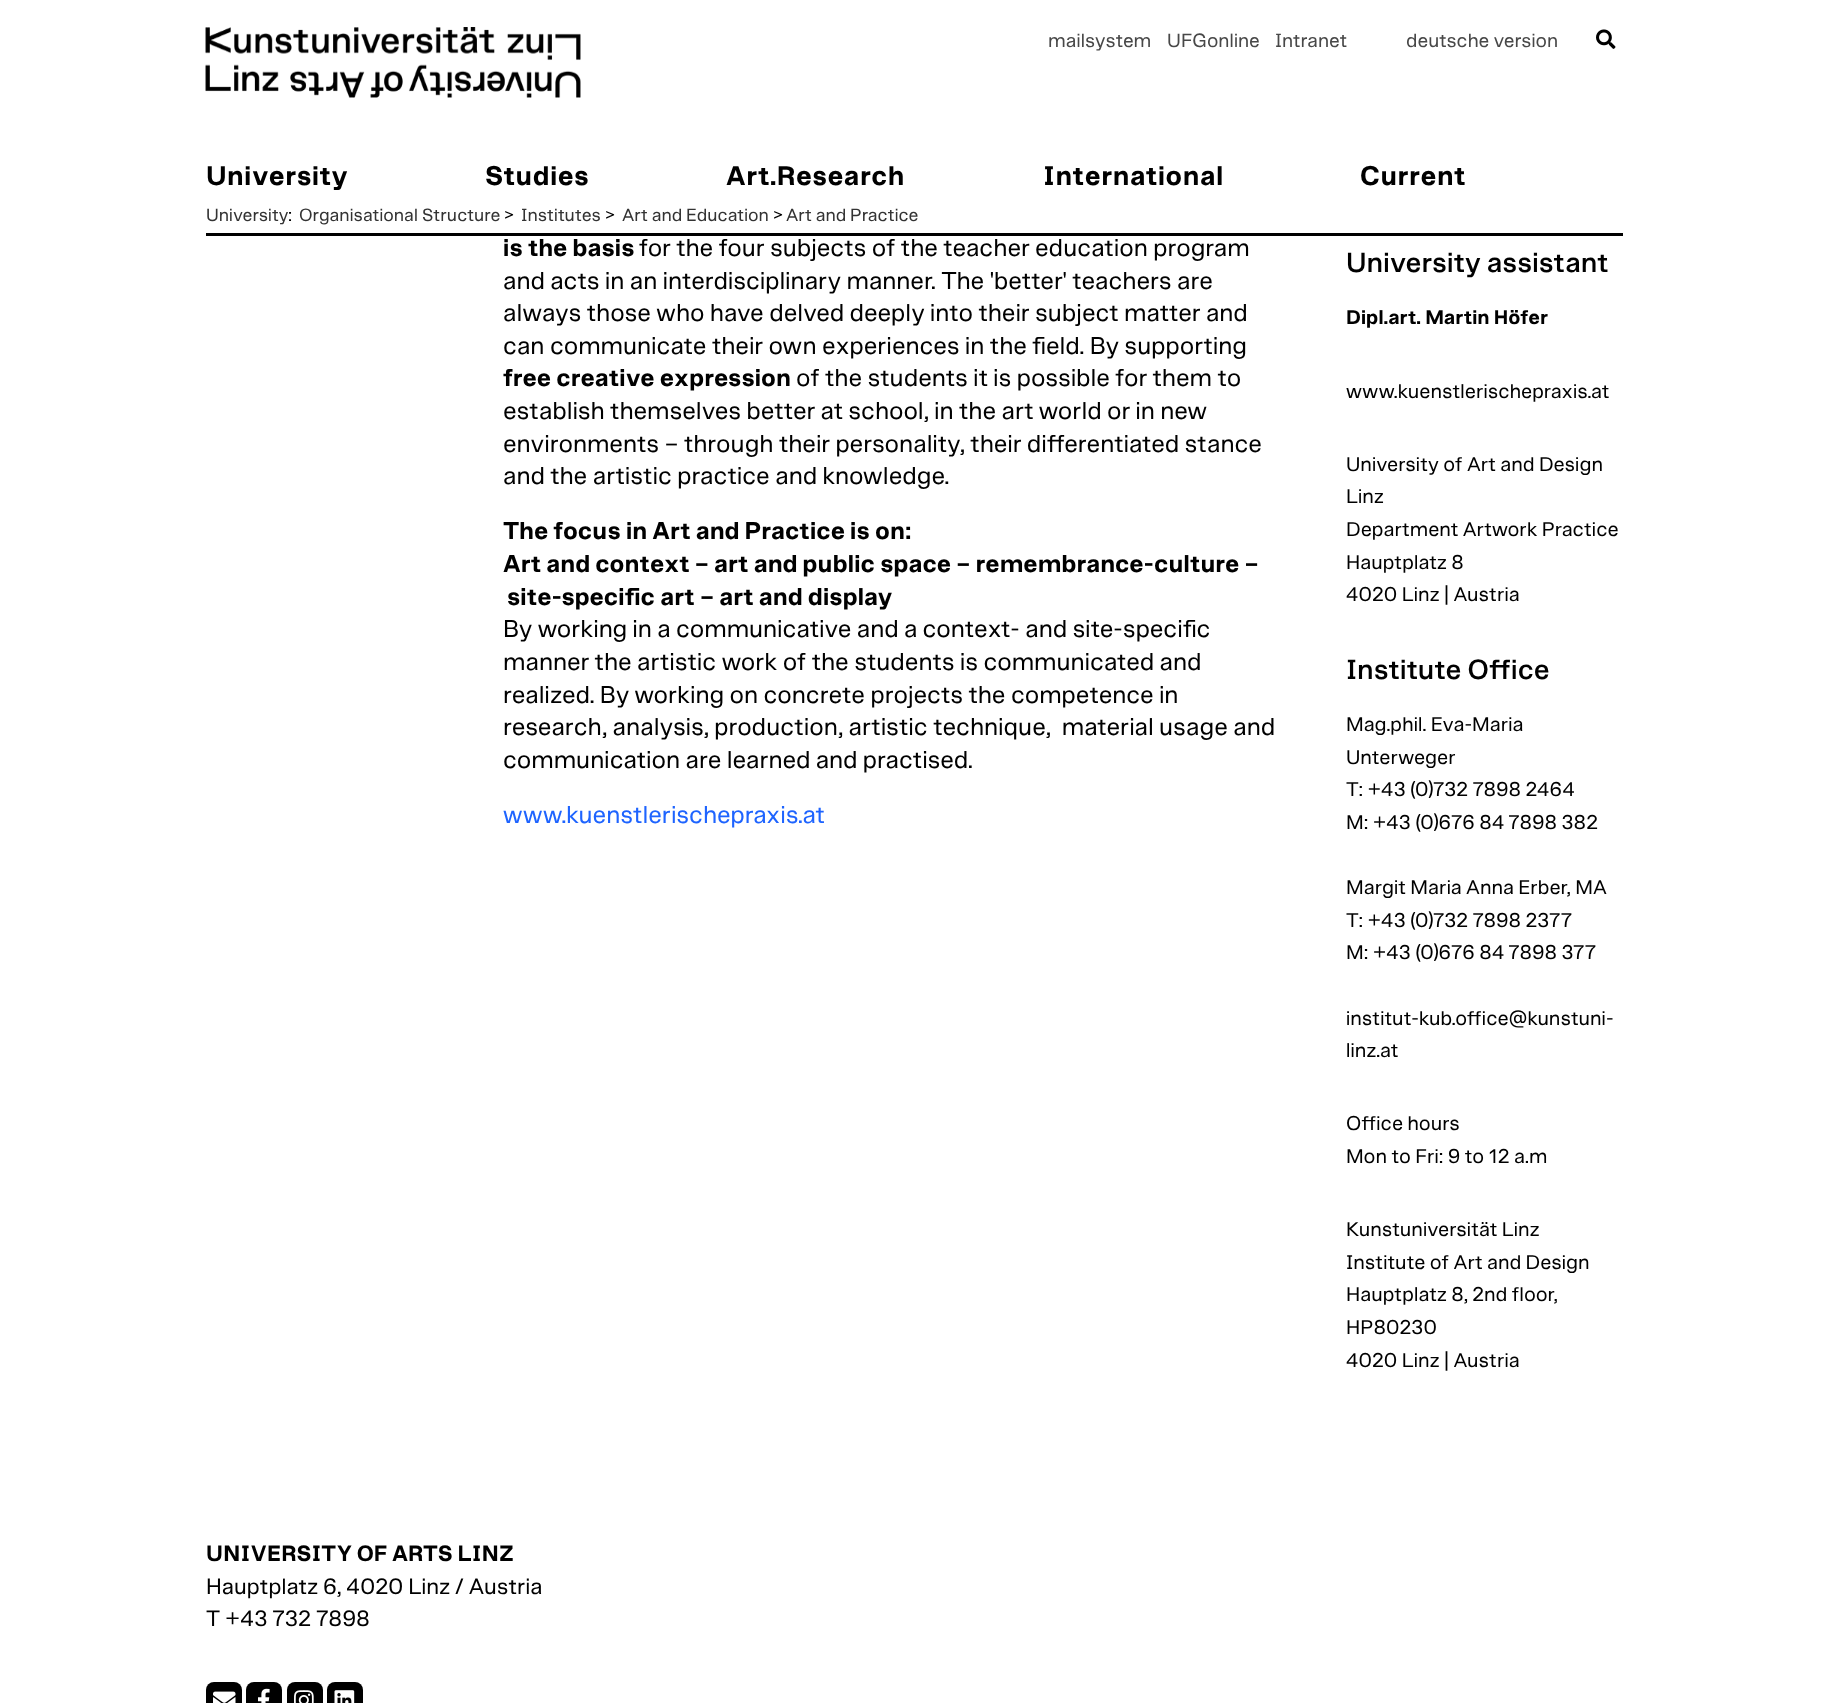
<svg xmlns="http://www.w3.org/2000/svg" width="1828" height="1703">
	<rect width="100%" height="100%" fill="#FFFFFF" />
	<image x="205" y="27" width="376" height="71" href="assets/img1.png" />
	<g font-family="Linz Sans" font-size="19.5" fill="#484848">
		<text x="1048" y="47">mailsystem</text>
		<text x="1167" y="47">UFGonline</text>
		<text x="1275" y="47">Intranet</text>
		<text x="1406" y="47">deutsche version</text>
	</g>
	<image x="1596" y="29" width="20" height="20" href="assets/img2.png" />
	<g font-family="Linz Sans" font-size="27.5" font-weight="700" letter-spacing="0.5" fill="#000000">
		<text x="206" y="185">University</text>
		<text x="485" y="185">Studies</text>
		<text x="726" y="185">Art.Research</text>
		<text x="1043" y="185">International</text>
		<text x="1360" y="185">Current</text>
	</g>
	<rect x="206" y="233" width="1417" height="3" fill="#000000" />
	<text x="206" y="221" font-family="Linz Sans" font-size="18" fill="#333333">University</text>
	<text x="288" y="221" font-family="Linz Sans" font-size="18" fill="#000000">:</text>
	<text x="299" y="221" font-family="Linz Sans" font-size="18" fill="#333333">Organisational Structure</text>
	<text x="504" y="221" font-family="Linz Sans" font-size="18" fill="#000000">&gt;</text>
	<text x="521" y="221" font-family="Linz Sans" font-size="18" fill="#333333">Institutes</text>
	<text x="605" y="221" font-family="Linz Sans" font-size="18" fill="#000000">&gt;</text>
	<text x="622" y="221" font-family="Linz Sans" font-size="18" fill="#333333">Art and Education</text>
	<text x="773" y="221" font-family="Linz Sans" font-size="18" fill="#000000">&gt;</text>
	<text x="786" y="221" font-family="Linz Sans" font-size="18" fill="#333333">Art and Practice</text>
	<text x="503" y="256" font-family="Linz Sans" font-size="24.75" font-weight="700" fill="#000000">is the basis</text>
	<g font-family="Linz Sans" font-size="24.75" fill="#000000">
		<text x="639" y="256">for the four subjects of the teacher education program</text>
		<text x="503" y="289">and acts in an interdisciplinary manner. The 'better' teachers are</text>
		<text x="503" y="321">always those who have delved deeply into their subject matter and</text>
		<text x="503" y="354">can communicate their own experiences in the field. By supporting</text>
	</g>
	<text x="503" y="386" font-family="Linz Sans" font-size="24.75" font-weight="700" fill="#000000">free creative expression</text>
	<g font-family="Linz Sans" font-size="24.75" fill="#000000">
		<text x="796" y="386">of the students it is possible for them to</text>
		<text x="503" y="419">establish themselves better at school, in the art world or in new</text>
		<text x="503" y="452">environments – through their personality, their differentiated stance</text>
		<text x="503" y="484">and the artistic practice and knowledge.</text>
	</g>
	<g font-family="Linz Sans" font-size="24.75" font-weight="700" fill="#000000">
		<text x="503" y="539">The focus in Art and Practice is on:</text>
		<text x="503" y="572">Art and context – art and public space – remembrance-culture –</text>
		<text x="507" y="605">site-specific art – art and display</text>
	</g>
	<g font-family="Linz Sans" font-size="24.75" fill="#000000">
		<text x="503" y="637">By working in a communicative and a context- and site-specific</text>
		<text x="503" y="670">manner the artistic work of the students is communicated and</text>
		<text x="503" y="703">realized. By working on concrete projects the competence in</text>
		<text x="503" y="735" xml:space="preserve">research, analysis, production, artistic technique,  material usage and</text>
		<text x="503" y="768">communication are learned and practised.</text>
	</g>
	<text x="503" y="823" font-family="Linz Sans" font-size="24.75" fill="#1E64FF">www.kuenstlerischepraxis.at</text>
	<text x="1346" y="272" font-family="Linz Sans" font-size="28.25" font-weight="500" fill="#000000">University assistant</text>
	<text x="1346" y="324" font-family="Linz Sans" font-size="20.25" font-weight="700" fill="#000000">Dipl.art. Martin Höfer</text>
	<g font-family="Linz Sans" font-size="20.25" fill="#000000">
		<text x="1346" y="398">www.kuenstlerischepraxis.at</text>
		<text x="1346" y="471">University of Art and Design</text>
		<text x="1346" y="503">Linz</text>
		<text x="1346" y="536">Department Artwork Practice</text>
		<text x="1346" y="569">Hauptplatz 8</text>
		<text x="1346" y="601">4020 Linz | Austria</text>
	</g>
	<text x="1346" y="679" font-family="Linz Sans" font-size="28.25" font-weight="500" fill="#000000">Institute Office</text>
	<g font-family="Linz Sans" font-size="20.25" fill="#000000">
		<text x="1346" y="731">Mag.phil. Eva-Maria</text>
		<text x="1346" y="764">Unterweger</text>
		<text x="1346" y="796">T: +43 (0)732 7898 2464</text>
		<text x="1346" y="829">M: +43 (0)676 84 7898 382</text>
		<text x="1346" y="894">Margit Maria Anna Erber, MA</text>
		<text x="1346" y="927">T: +43 (0)732 7898 2377</text>
		<text x="1346" y="959">M: +43 (0)676 84 7898 377</text>
		<text x="1346" y="1025">institut-kub.office@kunstuni-</text>
		<text x="1346" y="1057">linz.at</text>
		<text x="1346" y="1130">Office hours</text>
		<text x="1346" y="1163">Mon to Fri: 9 to 12 a.m</text>
		<text x="1346" y="1236">Kunstuniversität Linz</text>
		<text x="1346" y="1269">Institute of Art and Design</text>
		<text x="1346" y="1301">Hauptplatz 8, 2nd floor,</text>
		<text x="1346" y="1334">HP80230</text>
		<text x="1346" y="1367">4020 Linz | Austria</text>
	</g>
	<text x="206" y="1561" font-family="Linz Sans" font-size="22.5" font-weight="700" fill="#000000">UNIVERSITY OF ARTS LINZ</text>
	<g font-family="Linz Sans" font-size="22.5" fill="#000000">
		<text x="206" y="1594">Hauptplatz 6, 4020 Linz / Austria</text>
		<text x="206" y="1626">T +43 732 7898</text>
	</g>
	<rect x="206" y="1682" width="36" height="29" rx="8" fill="#000000" />
	<image x="213" y="1691" width="23" height="12" href="assets/img3.png" />
	<rect x="246" y="1682" width="36" height="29" rx="8" fill="#000000" />
	<image x="258" y="1688" width="12" height="15" href="assets/img4.png" />
	<rect x="287" y="1682" width="36" height="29" rx="8" fill="#000000" />
	<image x="294" y="1690" width="20" height="13" href="assets/img5.png" />
	<rect x="327" y="1682" width="36" height="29" rx="8" fill="#000000" />
	<image x="334" y="1690" width="21" height="13" href="assets/img6.png" />
</svg>
